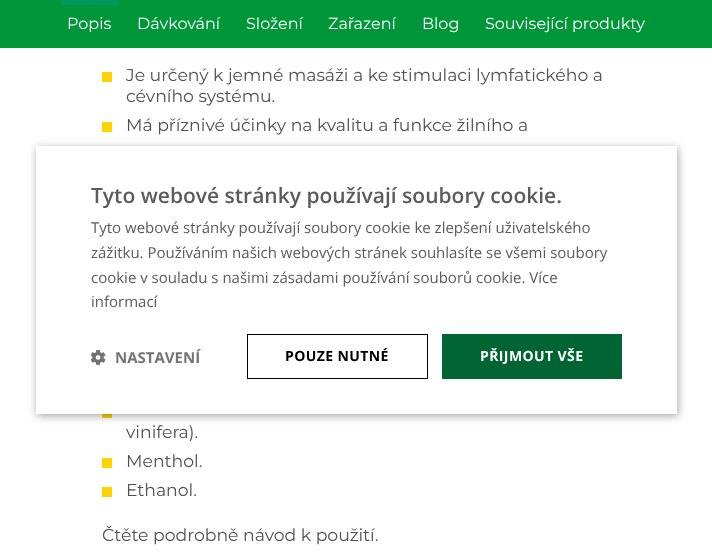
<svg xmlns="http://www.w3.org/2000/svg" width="712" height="560">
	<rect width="100%" height="100%" fill="#FFFFFF" />
	<rect x="0" y="0" width="712" height="48" fill="#009639" />
	<rect x="61" y="0" width="57" height="5" fill="#00965F" />
	<g font-family="Montserrat" font-size="16" fill="#FFFFFF">
		<text x="67" y="29">Popis</text>
		<text x="137" y="29">Dávkování</text>
		<text x="246" y="29">Složení</text>
		<text x="328" y="29">Zařazení</text>
		<text x="422" y="29">Blog</text>
		<text x="485" y="29">Související produkty</text>
	</g>
	<rect x="102" y="72" width="10" height="10" fill="#FFD100" />
	<g font-family="Montserrat" font-size="17.25" fill="#515151">
		<text x="126" y="81">Je určený k jemné masáži a ke stimulaci lymfatického a</text>
		<text x="126" y="102">cévního systému.</text>
	</g>
	<rect x="102" y="122" width="10" height="10" fill="#FFD100" />
	<text x="126" y="131" font-family="Montserrat" font-size="17.25" fill="#515151">Má příznivé účinky na kvalitu a funkce žilního a</text>
	<rect x="102" y="414" width="10" height="4" fill="#FFD100" />
	<text x="126" y="438" font-family="Montserrat" font-size="17.25" fill="#515151">vinifera).</text>
	<rect x="102" y="458" width="10" height="10" fill="#FFD100" />
	<text x="126" y="467" font-family="Montserrat" font-size="17.25" fill="#515151">Menthol.</text>
	<rect x="102" y="487" width="10" height="10" fill="#FFD100" />
	<g font-family="Montserrat" font-size="17.25" fill="#515151">
		<text x="126" y="496">Ethanol.</text>
		<text x="102" y="541">Čtěte podrobně návod k použití.</text>
	</g>
	<rect x="37" y="148" width="641" height="268" fill="#000000" fill-opacity="0.35" filter="blur(4px)" />
	<rect x="36" y="146" width="641" height="268" fill="#FFFFFF" />
	<text x="91" y="203" font-family="Open Sans" font-size="21" font-weight="600" fill="#5B5B5B">Tyto webové stránky používají soubory cookie.</text>
	<g font-family="Open Sans" font-size="15" fill="#5B5B5B">
		<text x="91" y="233">Tyto webové stránky používají soubory cookie ke zlepšení uživatelského</text>
		<text x="91" y="258">zážitku. Používáním našich webových stránek souhlasíte se všemi soubory</text>
		<text x="91" y="283">cookie v souladu s našimi zásadami používání souborů cookie. Více</text>
		<text x="91" y="307">informací</text>
	</g>
	<image x="91" y="350" width="15" height="15" href="assets/img1.png" />
	<text x="115" y="363" font-family="Open Sans" font-size="15" font-weight="700" fill="#747474">NASTAVENÍ</text>
	<rect x="247.5" y="334.5" width="180" height="44" fill="none" stroke="#000000" />
	<text x="285" y="361" font-family="Open Sans" font-size="14" font-weight="700" letter-spacing="0.4" fill="#000000">POUZE NUTNÉ</text>
	<rect x="442" y="334" width="180" height="45" fill="#006433" />
	<text x="480" y="361" font-family="Open Sans" font-size="14" font-weight="700" letter-spacing="0.4" fill="#FFFFFF">PŘIJMOUT VŠE</text>
</svg>
